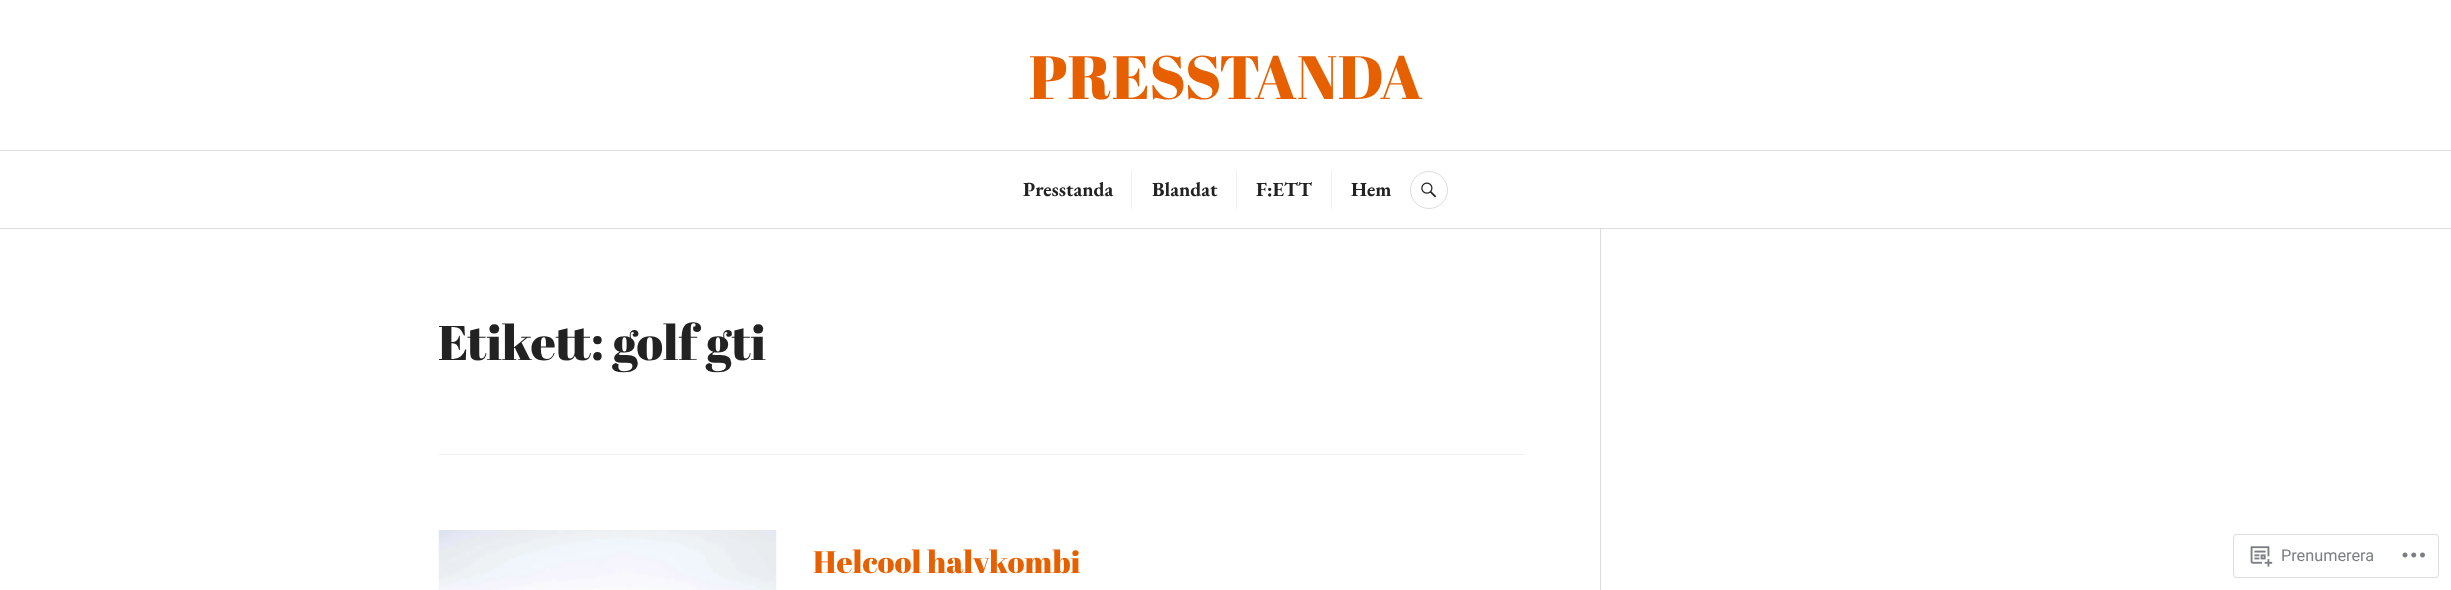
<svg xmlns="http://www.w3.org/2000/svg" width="2451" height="590">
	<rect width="100%" height="100%" fill="#FFFFFF" />
	<rect x="0" y="228" width="2451" height="1" fill="#DDDDDD" />
	<text x="1029" y="99" font-family="Abril Fatface" font-size="61.25" fill="#E66000">PRESSTANDA</text>
	<rect x="0" y="150" width="2451" height="1" fill="#DDDDDD" />
	<text x="1023" y="196" font-family="EB Garamond" font-size="20" font-weight="700" fill="#222222">Presstanda</text>
	<rect x="1131" y="171" width="1" height="38" fill="#EFEFEF" />
	<text x="1152" y="196" font-family="EB Garamond" font-size="20" font-weight="700" fill="#222222">Blandat</text>
	<rect x="1236" y="171" width="1" height="38" fill="#EFEFEF" />
	<text x="1256" y="196" font-family="EB Garamond" font-size="20" font-weight="700" fill="#222222">F:ETT</text>
	<rect x="1331" y="171" width="1" height="38" fill="#EFEFEF" />
	<text x="1351" y="196" font-family="EB Garamond" font-size="20" font-weight="700" fill="#222222">Hem</text>
	<circle cx="1429" cy="190" r="18.5" fill="none" stroke="#DDDDDD" />
	<image x="1421" y="182" width="16" height="16" href="assets/img1.png" />
	<rect x="1600" y="229" width="1" height="361" fill="#DDDDDD" />
	<rect x="439" y="454" width="1086" height="1" fill="#EFEFEF" />
	<text x="438" y="360" font-family="Abril Fatface" font-size="48.75" fill="#222222">Etikett: golf gti</text>
	<image x="438" y="530" width="339" height="60" href="assets/img2.png" />
	<text x="813" y="573" font-family="Abril Fatface" font-size="31.25" fill="#E66000">Helcool halvkombi</text>
	<rect x="2233.5" y="534.5" width="205" height="43" rx="3.5" fill="none" stroke="#DDDDDF" />
	<image x="2250" y="546" width="23" height="21" href="assets/img3.png" />
	<text x="2281" y="561" font-family="Roboto" font-size="16.25" fill="#7B7F85">Prenumerera</text>
	<image x="2402" y="552" width="23" height="6" href="assets/img4.png" />
</svg>
